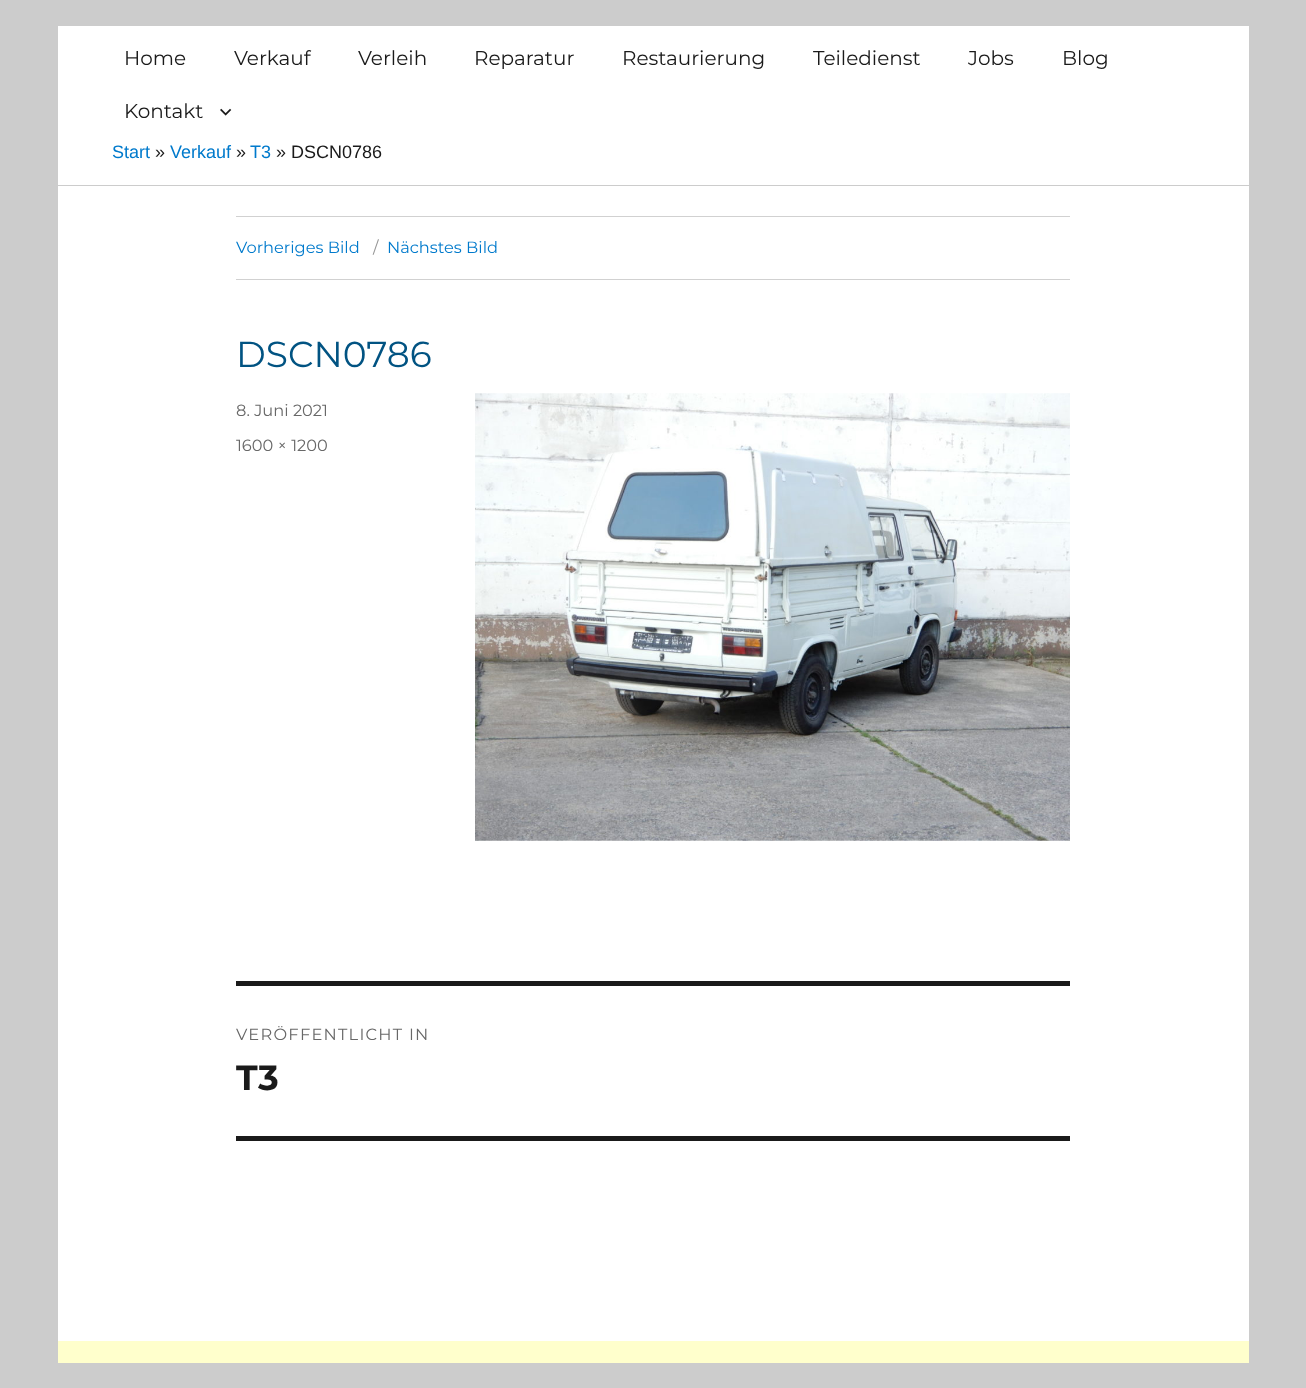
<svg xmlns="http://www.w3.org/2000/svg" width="1306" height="1388">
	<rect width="100%" height="100%" fill="#CCCCCC" />
	<rect x="58" y="26" width="1191" height="1315" fill="#FFFFFF" />
	<rect x="58" y="185" width="1191" height="1" fill="#CCCCCC" />
	<g font-family="Montserrat" font-size="20" fill="#1A1A1A">
		<text x="124" y="65">Home</text>
		<text x="234" y="65">Verkauf</text>
		<text x="358" y="65">Verleih</text>
		<text x="474" y="65">Reparatur</text>
		<text x="622" y="65">Restaurierung</text>
		<text x="813" y="65">Teiledienst</text>
		<text x="968" y="65">Jobs</text>
		<text x="1062" y="65">Blog</text>
		<text x="124" y="118">Kontakt</text>
	</g>
	<image x="220" y="108" width="12" height="8" href="assets/img1.png" />
	<text x="112" y="158" font-family="Liberation Sans" font-size="18" fill="#007ACC">Start</text>
	<text x="155" y="158" font-family="Liberation Sans" font-size="18" fill="#1A1A1A">»</text>
	<text x="170" y="158" font-family="Liberation Sans" font-size="18" fill="#007ACC">Verkauf</text>
	<text x="236" y="158" font-family="Liberation Sans" font-size="18" fill="#1A1A1A">»</text>
	<text x="250" y="158" font-family="Liberation Sans" font-size="18" fill="#007ACC">T3</text>
	<text x="276" y="158" font-family="Liberation Sans" font-size="18" fill="#1A1A1A">» DSCN0786</text>
	<rect x="236" y="216" width="834" height="1" fill="#D1D1D1" />
	<rect x="236" y="279" width="834" height="1" fill="#D1D1D1" />
	<text x="236" y="253" font-family="Montserrat" font-size="16.25" fill="#007ACC">Vorheriges Bild</text>
	<text x="373" y="253" font-family="Montserrat" font-size="16.25" fill="#959595">/</text>
	<text x="387" y="253" font-family="Montserrat" font-size="16.25" fill="#007ACC">Nächstes Bild</text>
	<text x="236" y="367" font-family="Montserrat" font-size="36" fill="#015382">DSCN0786</text>
	<g font-family="Montserrat" font-size="16.25" fill="#686868">
		<text x="236" y="416">8. Juni 2021</text>
		<text x="236" y="451">1600 × 1200</text>
	</g>
	<image x="475" y="393" width="595" height="448" href="assets/img2.png" />
	<rect x="236" y="981" width="834" height="5" fill="#1A1A1A" />
	<rect x="236" y="1136" width="834" height="5" fill="#1A1A1A" />
	<text x="236" y="1040" font-family="Montserrat" font-size="16.25" letter-spacing="1.25" fill="#686868">VERÖFFENTLICHT IN</text>
	<text x="236" y="1090" font-family="Montserrat" font-size="35" font-weight="700" fill="#1A1A1A">T3</text>
	<rect x="58" y="1341" width="1191" height="22" fill="#FFFFCC" />
</svg>
